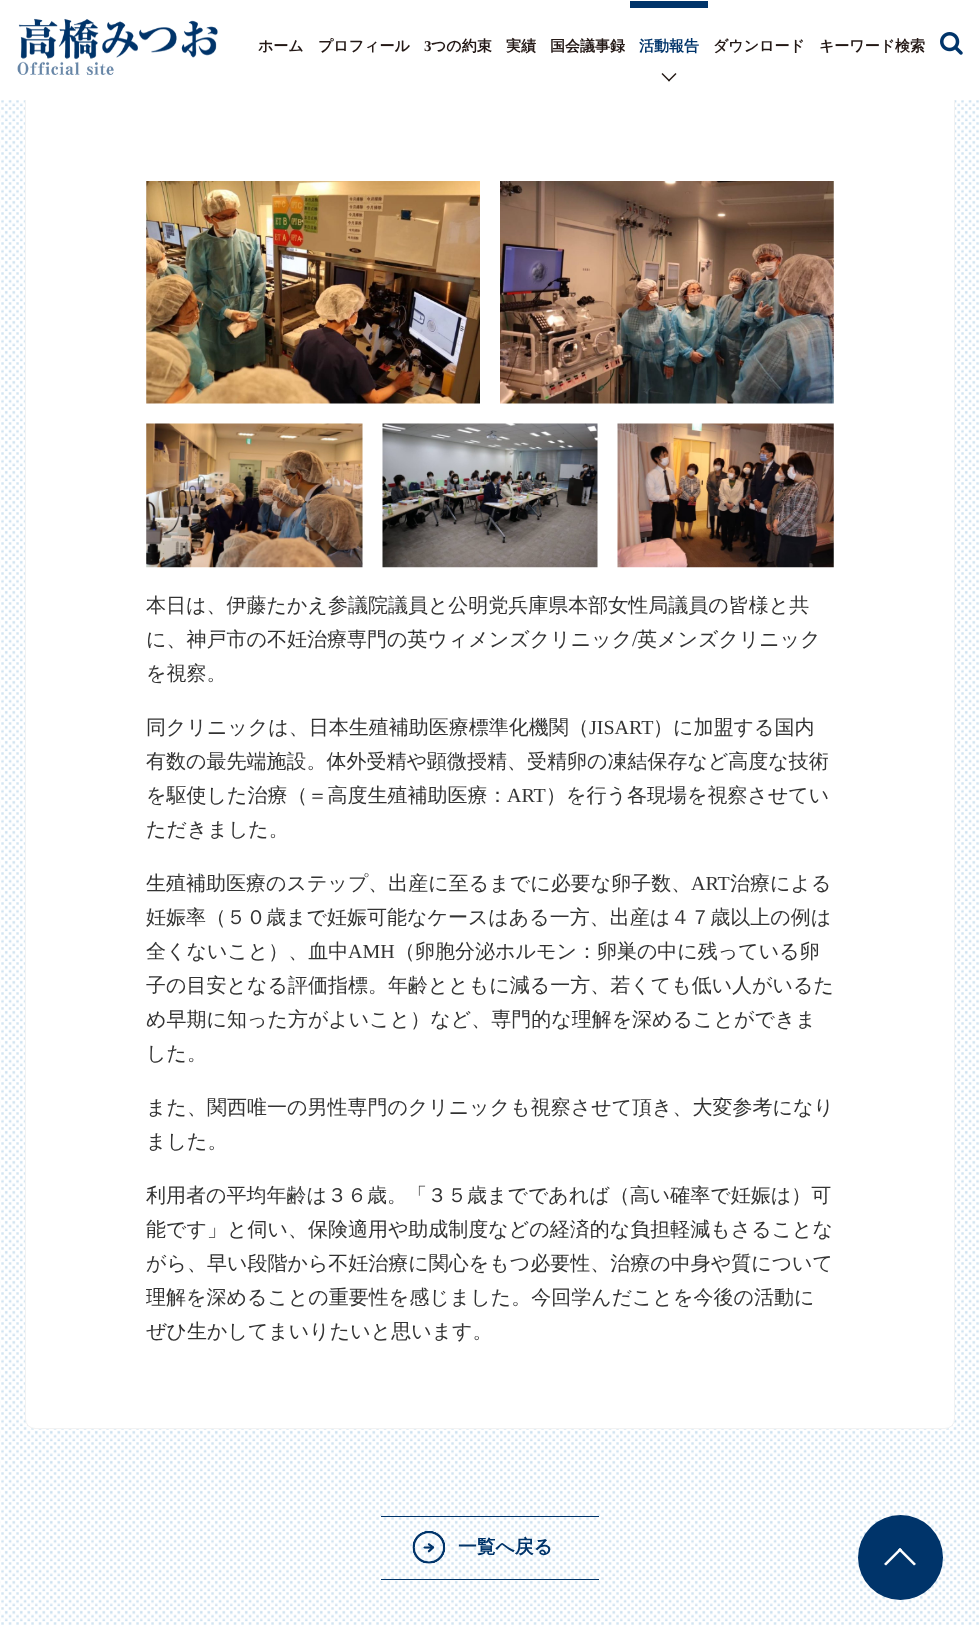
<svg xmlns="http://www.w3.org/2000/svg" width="979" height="1625">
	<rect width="100%" height="100%" fill="#FFFFFF" />
	<image x="0" y="100" width="979" height="1525" href="assets/img3.png" />
	<rect x="25.5" y="-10.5" width="929" height="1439" rx="9.5" fill="#FFFFFF" stroke="#F2F2F2" />
	<rect x="25" y="0" width="930" height="100" fill="#FFFFFF" />
	<image x="17" y="18" width="201" height="57" href="assets/img1.png" />
	<g font-family="WenQuanYi Zen Hei" font-size="15" font-weight="700" fill="#231815">
		<text x="258" y="51">ホーム</text>
		<text x="318" y="51">プロフィール</text>
	</g>
	<text x="424" y="51" font-family="Liberation Serif" font-size="15" font-weight="700" fill="#231815">3</text>
	<g font-family="WenQuanYi Zen Hei" font-size="15" font-weight="700" fill="#231815">
		<text x="431" y="51">つの約束</text>
		<text x="506" y="51">実績</text>
		<text x="550" y="51">国会議事録</text>
	</g>
	<rect x="630" y="1" width="78" height="7" fill="#00346A" />
	<text x="639" y="51" font-family="WenQuanYi Zen Hei" font-size="15" font-weight="700" fill="#00346A">活動報告</text>
	<path d="M668 80.5L675.5 73L676.5 74L669 81.5Z" fill="#231815" />
	<path d="M661.5 74L662.5 73L670 80.5L669 81.5Z" fill="#231815" />
	<g font-family="WenQuanYi Zen Hei" font-size="15" font-weight="700" fill="#231815">
		<text x="713" y="51">ダウンロード</text>
		<text x="819" y="51">キーワード検索</text>
	</g>
	<image x="940" y="32" width="23" height="23" href="assets/img2.png" />
	<image x="146" y="181" width="334" height="223" href="assets/img4.png" />
	<image x="500" y="181" width="334" height="223" href="assets/img5.png" />
	<image x="146" y="423" width="217" height="145" href="assets/img6.png" />
	<image x="382" y="423" width="216" height="145" href="assets/img7.png" />
	<image x="617" y="423" width="217" height="145" href="assets/img8.png" />
	<g font-family="WenQuanYi Zen Hei" font-size="20" font-weight="500" fill="#333333">
		<text x="146" y="612">本日は、伊藤たかえ参議院議員と公明党兵庫県本部女性局議員の皆様と共</text>
		<text x="146" y="646">に、神戸市の不妊治療専門の英ウィメンズクリニック</text>
	</g>
	<text x="632" y="646" font-family="Liberation Serif" font-size="20" fill="#333333">/</text>
	<g font-family="WenQuanYi Zen Hei" font-size="20" font-weight="500" fill="#333333">
		<text x="637" y="646">英メンズクリニック</text>
		<text x="146" y="680">を視察。</text>
		<text x="146" y="734">同クリニックは、日本生殖補助医療標準化機関（</text>
	</g>
	<text x="589" y="734" font-family="Liberation Serif" font-size="20" fill="#333333">JISART</text>
	<g font-family="WenQuanYi Zen Hei" font-size="20" font-weight="500" fill="#333333">
		<text x="653" y="734">）に加盟する国内</text>
		<text x="146" y="768">有数の最先端施設。体外受精や顕微授精、受精卵の凍結保存など高度な技術</text>
		<text x="146" y="802">を駆使した治療（＝高度生殖補助医療：</text>
	</g>
	<text x="507" y="802" font-family="Liberation Serif" font-size="20" fill="#333333">ART</text>
	<g font-family="WenQuanYi Zen Hei" font-size="20" font-weight="500" fill="#333333">
		<text x="546" y="802">）を行う各現場を視察させてい</text>
		<text x="146" y="836">ただきました。</text>
		<text x="146" y="890">生殖補助医療のステップ、出産に至るまでに必要な卵子数、</text>
	</g>
	<text x="691" y="890" font-family="Liberation Serif" font-size="20" fill="#333333">ART</text>
	<g font-family="WenQuanYi Zen Hei" font-size="20" font-weight="500" fill="#333333">
		<text x="730" y="890">治療による</text>
		<text x="146" y="924">妊娠率（５０歳まで妊娠可能なケースはある一方、出産は４７歳以上の例は</text>
		<text x="146" y="958">全くないこと）、血中</text>
	</g>
	<text x="348" y="958" font-family="Liberation Serif" font-size="20" fill="#333333">AMH</text>
	<g font-family="WenQuanYi Zen Hei" font-size="20" font-weight="500" fill="#333333">
		<text x="395" y="958">（卵胞分泌ホルモン：卵巣の中に残っている卵</text>
		<text x="146" y="992">子の目安となる評価指標。年齢とともに減る一方、若くても低い人がいるた</text>
		<text x="146" y="1026">め早期に知った方がよいこと）など、専門的な理解を深めることができま</text>
		<text x="146" y="1060">した。</text>
		<text x="146" y="1114">また、関西唯一の男性専門のクリニックも視察させて頂き、大変参考になり</text>
		<text x="146" y="1148">ました。</text>
		<text x="146" y="1202">利用者の平均年齢は３６歳。「３５歳までであれば（高い確率で妊娠は）可</text>
		<text x="146" y="1236">能です」と伺い、保険適用や助成制度などの経済的な負担軽減もさることな</text>
		<text x="146" y="1270">がら、早い段階から不妊治療に関心をもつ必要性、治療の中身や質について</text>
		<text x="146" y="1304">理解を深めることの重要性を感じました。今回学んだことを今後の活動に</text>
		<text x="146" y="1338">ぜひ生かしてまいりたいと思います。</text>
	</g>
	<rect x="381" y="1579" width="218" height="1" fill="#00346A" />
	<rect x="381" y="1516" width="218" height="1" fill="#00346A" />
	<image x="412" y="1531" width="33" height="33" href="assets/img9.png" />
	<text x="458" y="1553" font-family="WenQuanYi Zen Hei" font-size="18.75" font-weight="700" fill="#00346A">一覧へ戻る</text>
	<circle cx="900.5" cy="1557.5" r="42.5" fill="#00346A" />
	<path d="M900 1548L916 1564L914 1565.5L898 1549.5Z" fill="#FFFFFF" />
	<path d="M900 1548L902 1549.5L886 1565.5L884 1564Z" fill="#FFFFFF" />
</svg>
